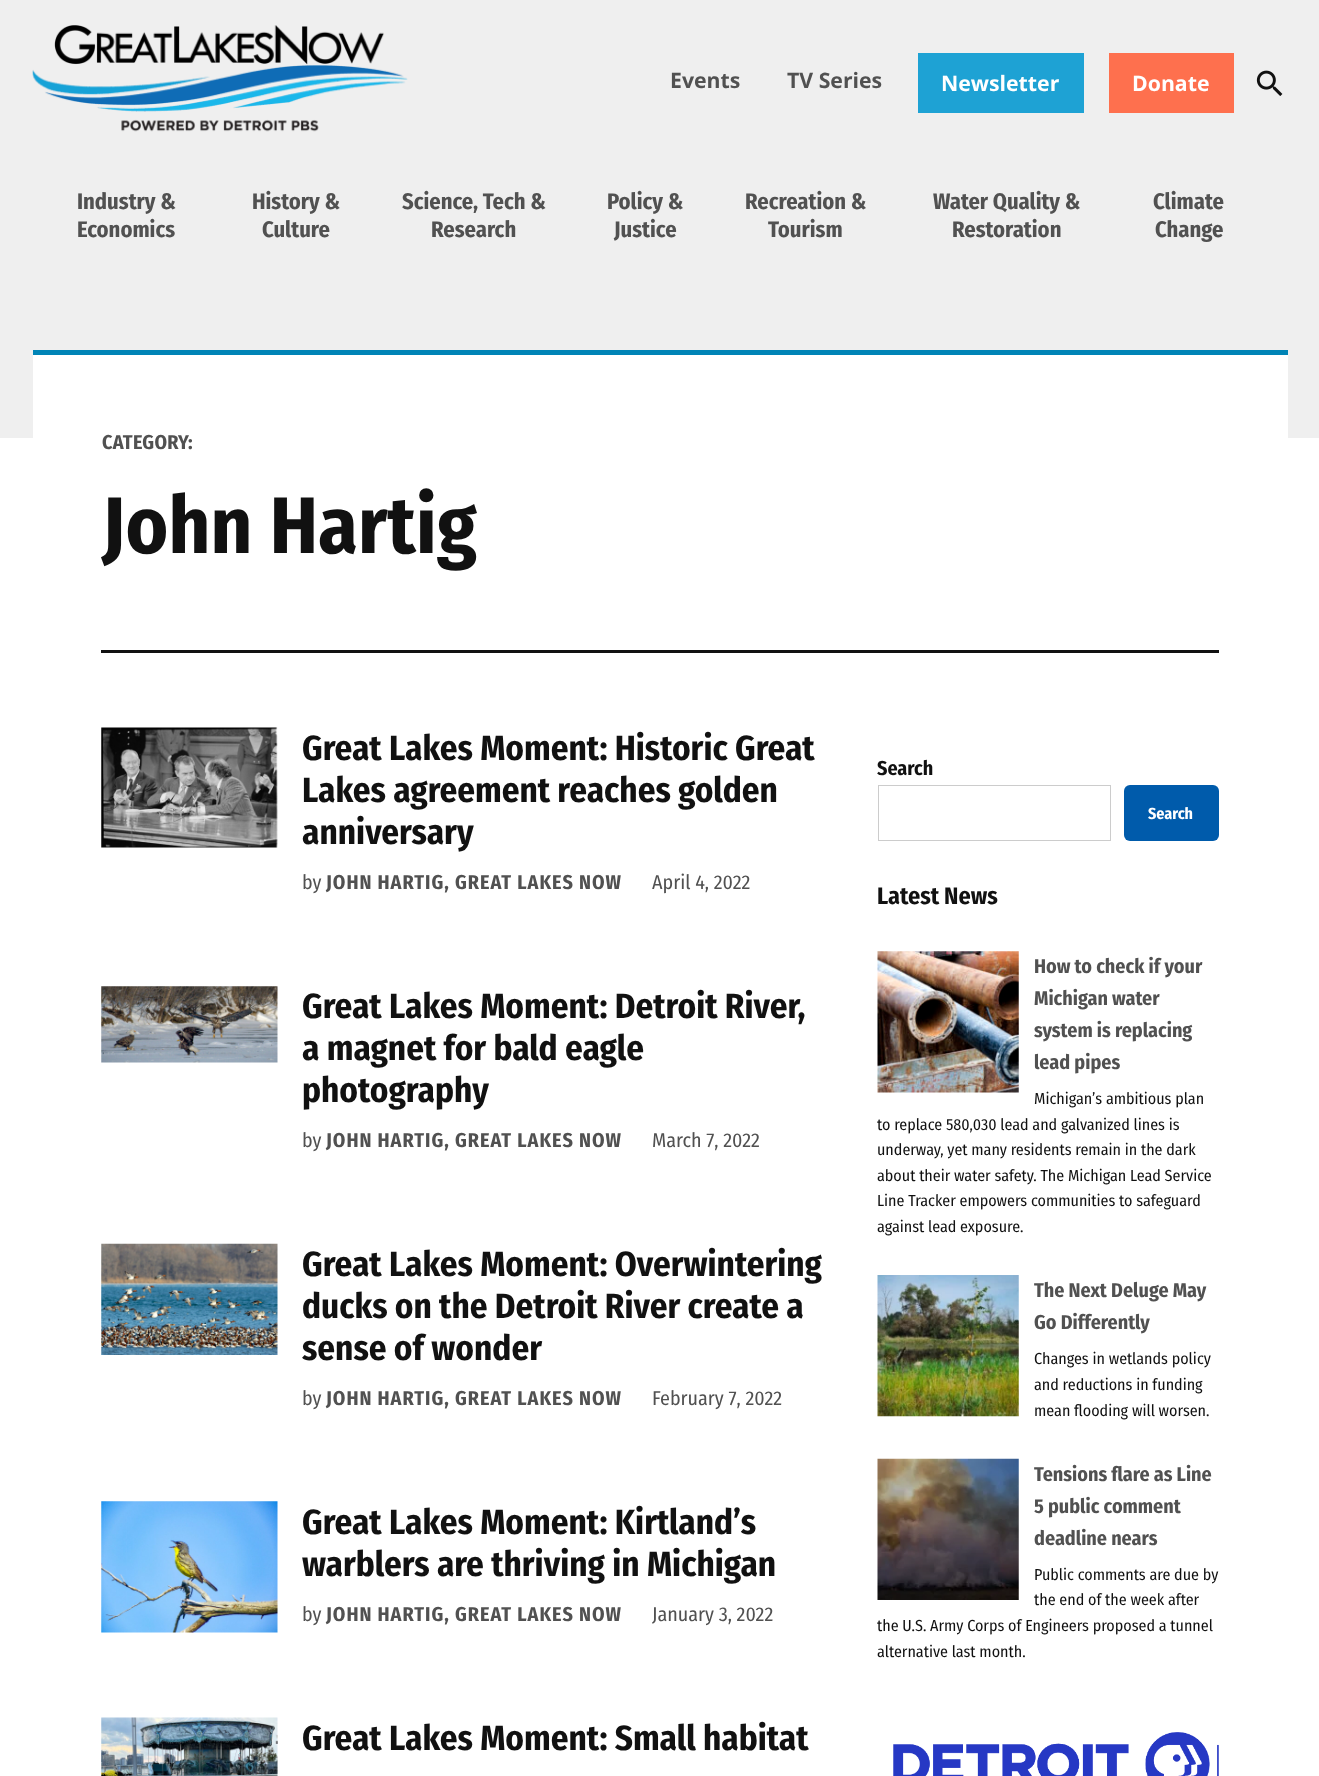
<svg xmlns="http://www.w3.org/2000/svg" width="1319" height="1776">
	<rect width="100%" height="100%" fill="#FFFFFF" />
	<rect x="0" y="0" width="1319" height="438" fill="#EFEFEF" />
	<image x="32" y="25" width="376" height="107" href="assets/img1.png" />
	<g font-family="Open Sans" font-size="21.25" font-weight="700" fill="#515151">
		<text x="670" y="88">Events</text>
		<text x="787" y="88">TV Series</text>
	</g>
	<rect x="918" y="53" width="166" height="60" fill="#1EA2D4" />
	<text x="941" y="91" font-family="Open Sans" font-size="21.25" font-weight="700" fill="#FFFFFF">Newsletter</text>
	<rect x="1109" y="53" width="125" height="60" fill="#FE704E" />
	<text x="1132" y="91" font-family="Open Sans" font-size="21.25" font-weight="700" fill="#FFFFFF">Donate</text>
	<image x="1256" y="70" width="27" height="26" href="assets/img2.png" />
	<g font-family="Fira Sans Condensed" font-size="22.5" font-weight="700" fill="#515151">
		<text x="77" y="209">Industry &amp;</text>
		<text x="77" y="237">Economics</text>
		<text x="252" y="209">History &amp;</text>
		<text x="262" y="237">Culture</text>
		<text x="402" y="209">Science, Tech &amp;</text>
		<text x="431" y="237">Research</text>
		<text x="607" y="209">Policy &amp;</text>
		<text x="614" y="237">Justice</text>
		<text x="745" y="209">Recreation &amp;</text>
		<text x="768" y="237">Tourism</text>
		<text x="933" y="209">Water Quality &amp;</text>
		<text x="952" y="237">Restoration</text>
		<text x="1153" y="209">Climate</text>
		<text x="1155" y="237">Change</text>
	</g>
	<rect x="33" y="355" width="1255" height="83" fill="#FFFFFF" />
	<rect x="33" y="350" width="1255" height="5" fill="#0084B6" />
	<rect x="101" y="650" width="1118" height="3" fill="#111111" />
	<text x="102" y="449" font-family="Fira Sans Condensed" font-size="20" font-weight="700" letter-spacing="0.25" fill="#515151">CATEGORY:</text>
	<text x="102" y="553" font-family="Fira Sans Condensed" font-size="80" font-weight="700" letter-spacing="0.25" fill="#111111">John Hartig</text>
	<image x="101" y="727" width="177" height="121" href="assets/img3.png" />
	<g font-family="Fira Sans Condensed" font-size="35" font-weight="700" fill="#111111">
		<text x="302" y="760">Great Lakes Moment: Historic Great</text>
		<text x="302" y="802">Lakes agreement reaches golden</text>
		<text x="302" y="844">anniversary</text>
	</g>
	<text x="302" y="889" font-family="Fira Sans Condensed" font-size="20" fill="#515151">by</text>
	<text x="326" y="889" font-family="Fira Sans Condensed" font-size="20" font-weight="700" letter-spacing="1" fill="#515151">JOHN HARTIG, GREAT LAKES NOW</text>
	<text x="652" y="889" font-family="Fira Sans Condensed" font-size="20" fill="#515151">April 4, 2022</text>
	<image x="101" y="986" width="177" height="77" href="assets/img4.png" />
	<g font-family="Fira Sans Condensed" font-size="35" font-weight="700" fill="#111111">
		<text x="302" y="1018">Great Lakes Moment: Detroit River,</text>
		<text x="302" y="1060">a magnet for bald eagle</text>
		<text x="302" y="1102">photography</text>
	</g>
	<text x="302" y="1147" font-family="Fira Sans Condensed" font-size="20" fill="#515151">by</text>
	<text x="326" y="1147" font-family="Fira Sans Condensed" font-size="20" font-weight="700" letter-spacing="1" fill="#515151">JOHN HARTIG, GREAT LAKES NOW</text>
	<text x="652" y="1147" font-family="Fira Sans Condensed" font-size="20" fill="#515151">March 7, 2022</text>
	<image x="101" y="1243" width="177" height="112" href="assets/img5.png" />
	<g font-family="Fira Sans Condensed" font-size="35" font-weight="700" fill="#111111">
		<text x="302" y="1276">Great Lakes Moment: Overwintering</text>
		<text x="302" y="1318">ducks on the Detroit River create a</text>
		<text x="302" y="1360">sense of wonder</text>
	</g>
	<text x="302" y="1405" font-family="Fira Sans Condensed" font-size="20" fill="#515151">by</text>
	<text x="326" y="1405" font-family="Fira Sans Condensed" font-size="20" font-weight="700" letter-spacing="1" fill="#515151">JOHN HARTIG, GREAT LAKES NOW</text>
	<text x="652" y="1405" font-family="Fira Sans Condensed" font-size="20" fill="#515151">February 7, 2022</text>
	<image x="101" y="1501" width="177" height="132" href="assets/img6.png" />
	<g font-family="Fira Sans Condensed" font-size="35" font-weight="700" fill="#111111">
		<text x="302" y="1534">Great Lakes Moment: Kirtland’s</text>
		<text x="302" y="1576">warblers are thriving in Michigan</text>
	</g>
	<text x="302" y="1621" font-family="Fira Sans Condensed" font-size="20" fill="#515151">by</text>
	<text x="326" y="1621" font-family="Fira Sans Condensed" font-size="20" font-weight="700" letter-spacing="1" fill="#515151">JOHN HARTIG, GREAT LAKES NOW</text>
	<text x="652" y="1621" font-family="Fira Sans Condensed" font-size="20" fill="#515151">January 3, 2022</text>
	<image x="101" y="1717" width="177" height="59" href="assets/img7.png" />
	<text x="302" y="1750" font-family="Fira Sans Condensed" font-size="35" font-weight="700" fill="#111111">Great Lakes Moment: Small habitat</text>
	<text x="877" y="775" font-family="Fira Sans Condensed" font-size="20" font-weight="700" fill="#111111">Search</text>
	<rect x="878.5" y="785.5" width="232" height="55" fill="none" stroke="#CCCCCC" />
	<rect x="1124" y="785" width="95" height="56" rx="6" fill="#005BAB" />
	<text x="1148" y="819" font-family="Fira Sans Condensed" font-size="16" font-weight="700" fill="#FFFFFF">Search</text>
	<text x="877" y="904" font-family="Fira Sans Condensed" font-size="24" font-weight="700" fill="#111111">Latest News</text>
	<image x="877" y="951" width="142" height="142" href="assets/img8.png" />
	<g font-family="Fira Sans Condensed" font-size="20" font-weight="700" fill="#515151">
		<text x="1034" y="973">How to check if your</text>
		<text x="1034" y="1005">Michigan water</text>
		<text x="1034" y="1037">system is replacing</text>
		<text x="1034" y="1069">lead pipes</text>
	</g>
	<g font-family="Fira Sans Condensed" font-size="16" fill="#111111">
		<text x="1034" y="1104">Michigan’s ambitious plan</text>
		<text x="877" y="1130">to replace 580,030 lead and galvanized lines is</text>
		<text x="877" y="1155">underway, yet many residents remain in the dark</text>
		<text x="877" y="1181">about their water safety. The Michigan Lead Service</text>
		<text x="877" y="1206">Line Tracker empowers communities to safeguard</text>
		<text x="877" y="1232">against lead exposure.</text>
	</g>
	<image x="877" y="1275" width="142" height="142" href="assets/img9.png" />
	<g font-family="Fira Sans Condensed" font-size="20" font-weight="700" fill="#515151">
		<text x="1034" y="1297">The Next Deluge May</text>
		<text x="1034" y="1329">Go Differently</text>
	</g>
	<g font-family="Fira Sans Condensed" font-size="16" fill="#111111">
		<text x="1034" y="1364">Changes in wetlands policy</text>
		<text x="1034" y="1390">and reductions in funding</text>
		<text x="1034" y="1416">mean flooding will worsen.</text>
	</g>
	<image x="877" y="1458" width="142" height="142" href="assets/img10.png" />
	<g font-family="Fira Sans Condensed" font-size="20" font-weight="700" fill="#515151">
		<text x="1034" y="1481">Tensions flare as Line</text>
		<text x="1034" y="1513">5 public comment</text>
		<text x="1034" y="1545">deadline nears</text>
	</g>
	<g font-family="Fira Sans Condensed" font-size="16" fill="#111111">
		<text x="1034" y="1580">Public comments are due by</text>
		<text x="1034" y="1605">the end of the week after</text>
		<text x="877" y="1631">the U.S. Army Corps of Engineers proposed a tunnel</text>
		<text x="877" y="1657">alternative last month.</text>
	</g>
	<image x="893" y="1732" width="326" height="44" href="assets/img11.png" />
</svg>
